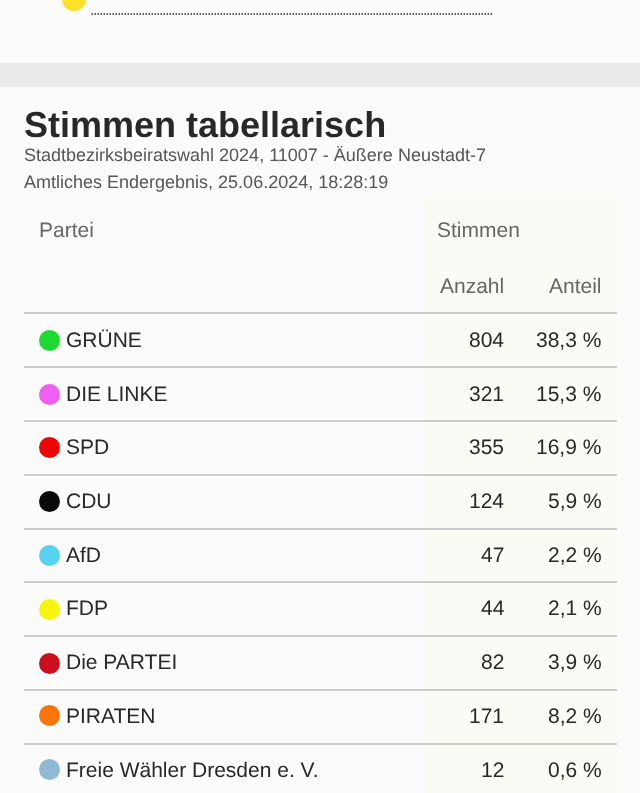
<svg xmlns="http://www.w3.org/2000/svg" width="640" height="793">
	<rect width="100%" height="100%" fill="#EBEBEB" />
	<rect x="0" y="0" width="640" height="63" fill="#FBFBFB" />
	<rect x="62" y="-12" width="24" height="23" rx="12" fill="#FFE228" />
	<path d="M91.5 14H492" fill="none" stroke="#282828" stroke-width="1.5" stroke-dasharray="1.5 1.5" />
	<rect x="0" y="87" width="640" height="706" fill="#FBFBFB" />
	<text x="24" y="137" font-family="Liberation Sans" font-size="36" font-weight="700" fill="#282828">Stimmen tabellarisch</text>
	<g font-family="Liberation Sans" font-size="18" fill="#565656">
		<text x="24" y="161">Stadtbezirksbeiratswahl 2024, 11007 - Äußere Neustadt-7</text>
		<text x="24" y="188">Amtliches Endergebnis, 25.06.2024, 18:28:19</text>
	</g>
	<rect x="423" y="195" width="194" height="598" fill="#F9FBF4" />
	<g font-family="Liberation Sans" font-size="21" fill="#666666">
		<text x="39" y="237">Partei</text>
		<text x="437" y="237">Stimmen</text>
		<text x="440" y="293">Anzahl</text>
	</g>
	<rect x="24" y="312" width="593" height="2" fill="#CCCCCC" />
	<text x="549" y="293" font-family="Liberation Sans" font-size="21" fill="#666666">Anteil</text>
	<circle cx="49.5" cy="340.5" r="10.5" fill="#20D930" />
	<g font-family="Liberation Sans" font-size="21" fill="#282828">
		<text x="66" y="347">GRÜNE</text>
		<text x="469" y="347">804</text>
	</g>
	<rect x="24" y="366" width="593" height="2" fill="#CCCCCC" />
	<text x="536" y="347" font-family="Liberation Sans" font-size="21" fill="#282828">38,3 %</text>
	<circle cx="49.5" cy="394.5" r="10.5" fill="#F060F0" />
	<g font-family="Liberation Sans" font-size="21" fill="#282828">
		<text x="66" y="401">DIE LINKE</text>
		<text x="469" y="401">321</text>
	</g>
	<rect x="24" y="420" width="593" height="2" fill="#CCCCCC" />
	<text x="536" y="401" font-family="Liberation Sans" font-size="21" fill="#282828">15,3 %</text>
	<circle cx="49.5" cy="447.5" r="10.5" fill="#ED0505" />
	<g font-family="Liberation Sans" font-size="21" fill="#282828">
		<text x="66" y="454">SPD</text>
		<text x="469" y="454">355</text>
	</g>
	<rect x="24" y="474" width="593" height="2" fill="#CCCCCC" />
	<text x="536" y="454" font-family="Liberation Sans" font-size="21" fill="#282828">16,9 %</text>
	<circle cx="49.5" cy="501.5" r="10.5" fill="#0A0A0A" />
	<g font-family="Liberation Sans" font-size="21" fill="#282828">
		<text x="66" y="508">CDU</text>
		<text x="469" y="508">124</text>
	</g>
	<rect x="24" y="528" width="593" height="2" fill="#CCCCCC" />
	<text x="548" y="508" font-family="Liberation Sans" font-size="21" fill="#282828">5,9 %</text>
	<circle cx="49.5" cy="555.5" r="10.5" fill="#57D3F2" />
	<g font-family="Liberation Sans" font-size="21" fill="#282828">
		<text x="66" y="562">AfD</text>
		<text x="481" y="562">47</text>
	</g>
	<rect x="24" y="581" width="593" height="2" fill="#CCCCCC" />
	<text x="548" y="562" font-family="Liberation Sans" font-size="21" fill="#282828">2,2 %</text>
	<circle cx="49.5" cy="609.5" r="10.5" fill="#F5F50E" />
	<g font-family="Liberation Sans" font-size="21" fill="#282828">
		<text x="66" y="615">FDP</text>
		<text x="481" y="615">44</text>
	</g>
	<rect x="24" y="635" width="593" height="2" fill="#CCCCCC" />
	<text x="548" y="615" font-family="Liberation Sans" font-size="21" fill="#282828">2,1 %</text>
	<circle cx="49.5" cy="663.5" r="10.5" fill="#CC0E1D" />
	<g font-family="Liberation Sans" font-size="21" fill="#282828">
		<text x="66" y="669">Die PARTEI</text>
		<text x="481" y="669">82</text>
	</g>
	<rect x="24" y="689" width="593" height="2" fill="#CCCCCC" />
	<text x="548" y="669" font-family="Liberation Sans" font-size="21" fill="#282828">3,9 %</text>
	<circle cx="49.5" cy="715.5" r="10.5" fill="#FF740A" />
	<g font-family="Liberation Sans" font-size="21" fill="#282828">
		<text x="66" y="723">PIRATEN</text>
		<text x="469" y="723">171</text>
	</g>
	<rect x="24" y="743" width="593" height="2" fill="#CCCCCC" />
	<text x="548" y="723" font-family="Liberation Sans" font-size="21" fill="#282828">8,2 %</text>
	<circle cx="49.5" cy="769.5" r="10.5" fill="#90B9D4" />
	<g font-family="Liberation Sans" font-size="21" fill="#282828">
		<text x="66" y="777">Freie Wähler Dresden e. V.</text>
		<text x="481" y="777">12</text>
		<text x="548" y="777">0,6 %</text>
	</g>
</svg>
